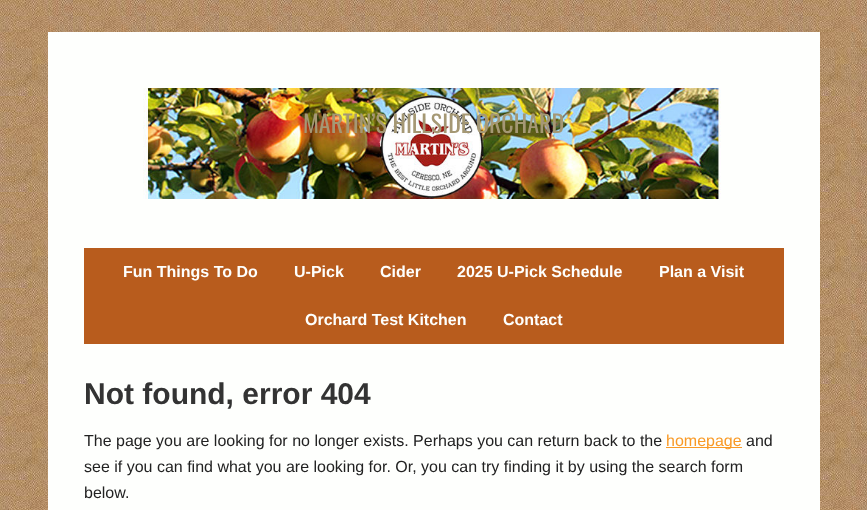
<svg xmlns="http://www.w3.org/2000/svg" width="867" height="510">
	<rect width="100%" height="100%" fill="#FFFFFF" />
	<image x="0" y="0" width="867" height="510" href="assets/img1.png" />
	<rect x="48" y="32" width="772" height="478" fill="#FEFFFD" />
	<image x="143" y="88" width="578" height="111" href="assets/img2.png" />
	<text x="303" y="133" font-family="Oswald" font-size="24" fill="#A59874">MARTIN’S HILLSIDE ORCHARD</text>
	<rect x="84" y="248" width="700" height="96" fill="#B85C1D" />
	<g font-family="Liberation Sans" font-size="16" font-weight="700" fill="#FEFFFD">
		<text x="123" y="277">Fun Things To Do</text>
		<text x="294" y="277">U-Pick</text>
		<text x="380" y="277">Cider</text>
		<text x="457" y="277">2025 U-Pick Schedule</text>
		<text x="659" y="277">Plan a Visit</text>
		<text x="305" y="325">Orchard Test Kitchen</text>
		<text x="503" y="325">Contact</text>
	</g>
	<text x="84" y="404" font-family="Liberation Sans" font-size="30" font-weight="700" fill="#333333">Not found, error 404</text>
	<text x="84" y="446" font-family="Liberation Sans" font-size="16" fill="#222222">The page you are looking for no longer exists. Perhaps you can return back to the</text>
	<rect x="666" y="447" width="76" height="1" fill="#F99A26" />
	<text x="666" y="446" font-family="Liberation Sans" font-size="16" fill="#F99A26">homepage</text>
	<g font-family="Liberation Sans" font-size="16" fill="#222222">
		<text x="746" y="446">and</text>
		<text x="84" y="472">see if you can find what you are looking for. Or, you can try finding it by using the search form</text>
		<text x="84" y="498">below.</text>
	</g>
</svg>
